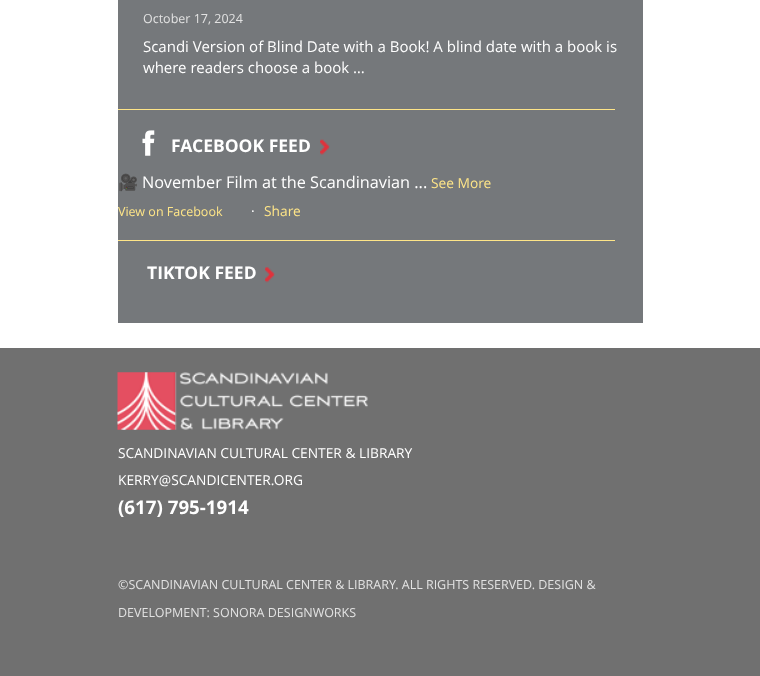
<svg xmlns="http://www.w3.org/2000/svg" width="760" height="676">
	<defs>
		<clipPath id="clip1"><rect x="118" y="170" width="525" height="70" /></clipPath>
	</defs>
	<rect width="100%" height="100%" fill="#FFFFFF" />
	<rect x="118" y="0" width="525" height="323" fill="#75787B" />
	<text x="143" y="23" font-family="Open Sans" font-size="12.5" fill="#E2E2E2">October 17, 2024</text>
	<g font-family="Open Sans" font-size="15" fill="#FFFFFF">
		<text x="143" y="52">Scandi Version of Blind Date with a Book! A blind date with a book is</text>
		<text x="143" y="73">where readers choose a book …</text>
	</g>
	<rect x="118" y="109" width="497" height="1" fill="#FEE588" />
	<image x="142" y="130" width="13" height="26" href="assets/img1.png" />
	<image x="320" y="139" width="10" height="16" href="assets/img2.png" />
	<text x="171" y="152" font-family="Open Sans" font-size="17.5" font-weight="700" fill="#FFFFFF">FACEBOOK FEED</text>
	<g clip-path="url(#clip1)">
		<text x="118" y="188" font-family="Noto Color Emoji" font-size="16.25" fill="#FFFFFF">🎥</text>
	</g>
	<text x="142" y="188" font-family="Open Sans" font-size="16.25" fill="#FFFFFF">November Film at the Scandinavian ...</text>
	<text x="431" y="188" font-family="Open Sans" font-size="13.75" fill="#FEE588">See More</text>
	<text x="118" y="216" font-family="Open Sans" font-size="12.5" fill="#FEE588">View on Facebook</text>
	<text x="251" y="216" font-family="Open Sans" font-size="13.75" fill="#FFFFFF">·</text>
	<text x="264" y="216" font-family="Open Sans" font-size="13.75" fill="#FEE588">Share</text>
	<rect x="118" y="240" width="497" height="1" fill="#FEE588" />
	<image x="265" y="267" width="10" height="16" href="assets/img3.png" />
	<text x="147" y="279" font-family="Open Sans" font-size="17.5" font-weight="700" fill="#FFFFFF">TIKTOK FEED</text>
	<rect x="0" y="348" width="760" height="328" fill="#707070" />
	<image x="117" y="372" width="251" height="58" href="assets/img4.png" />
	<g font-family="Open Sans" font-size="13.75" fill="#FFFFFF">
		<text x="118" y="458">SCANDINAVIAN CULTURAL CENTER &amp; LIBRARY</text>
		<text x="118" y="485">KERRY@SCANDICENTER.ORG</text>
	</g>
	<text x="118" y="514" font-family="Open Sans" font-size="18.75" font-weight="700" fill="#FFFFFF">(617) 795-1914</text>
	<g font-family="Open Sans" font-size="12.5" fill="#E2E2E2">
		<text x="118" y="589">©SCANDINAVIAN CULTURAL CENTER &amp; LIBRARY. ALL RIGHTS RESERVED. DESIGN &amp;</text>
		<text x="118" y="617">DEVELOPMENT: SONORA DESIGNWORKS</text>
	</g>
</svg>
